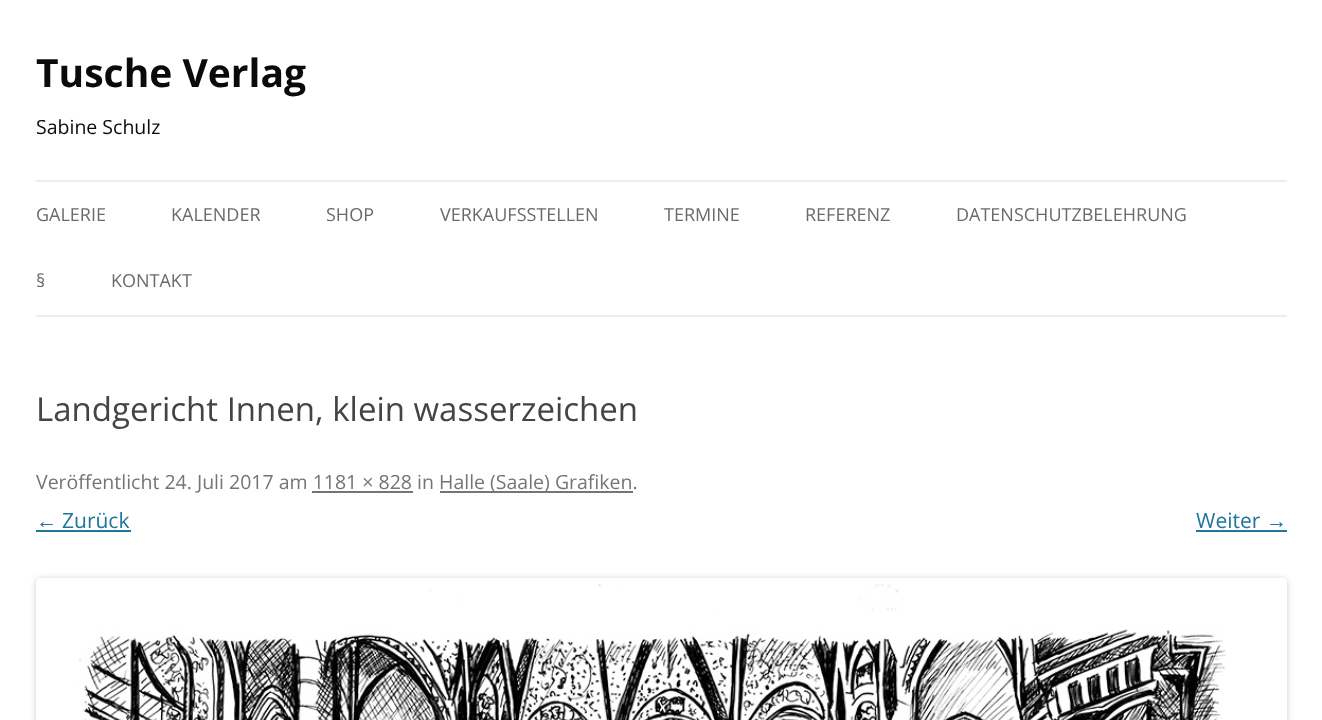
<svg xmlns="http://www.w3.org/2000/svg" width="1322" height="720">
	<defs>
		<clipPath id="clip1"><path d="M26 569H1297V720H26ZM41 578H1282C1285 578 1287 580 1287 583V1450C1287 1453 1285 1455 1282 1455H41C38 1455 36 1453 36 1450V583C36 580 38 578 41 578Z" clip-rule="evenodd" /></clipPath>
	</defs>
	<rect width="100%" height="100%" fill="#FFFFFF" />
	<text x="36" y="87" font-family="Open Sans" font-size="39" font-weight="700" fill="#0A0A0A">Tusche Verlag</text>
	<text x="36" y="134" font-family="Open Sans" font-size="19.5" fill="#0A0A0A">Sabine Schulz</text>
	<rect x="36" y="180" width="1251" height="2" fill="#EDEDED" />
	<rect x="36" y="315" width="1251" height="2" fill="#EDEDED" />
	<g font-family="Open Sans" font-size="18" fill="#6A6A6A">
		<text x="36" y="221">GALERIE</text>
		<text x="171" y="221">KALENDER</text>
		<text x="326" y="221">SHOP</text>
		<text x="440" y="221">VERKAUFSSTELLEN</text>
		<text x="664" y="221">TERMINE</text>
		<text x="805" y="221">REFERENZ</text>
		<text x="956" y="221">DATENSCHUTZBELEHRUNG</text>
		<text x="36" y="287">§</text>
		<text x="111" y="287">KONTAKT</text>
	</g>
	<text x="36" y="421" font-family="Open Sans" font-size="33" fill="#444444">Landgericht Innen, klein wasserzeichen</text>
	<text x="36" y="489" font-family="Open Sans" font-size="19.5" fill="#757575">Veröffentlicht 24. Juli 2017 am 1181 × 828 in</text>
	<rect x="440" y="491" width="193" height="2" fill="#757575" />
	<text x="439" y="489" font-family="Open Sans" font-size="19.5" fill="#757575">Halle (Saale) Grafiken.</text>
	<rect x="312" y="491" width="101" height="2" fill="#757575" />
	<text x="36" y="528" font-family="Liberation Sans" font-size="21" fill="#21759B">←</text>
	<rect x="36" y="530" width="95" height="2" fill="#21759B" />
	<g font-family="Open Sans" font-size="21" fill="#21759B">
		<text x="62" y="528">Zurück</text>
		<text x="1196" y="528">Weiter</text>
	</g>
	<text x="1266" y="528" font-family="Liberation Sans" font-size="21" fill="#21759B">→</text>
	<rect x="1196" y="530" width="91" height="2" fill="#21759B" />
	<g clip-path="url(#clip1)">
		<rect x="36" y="579" width="1251" height="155" rx="5" fill="#000000" fill-opacity="0.2" filter="blur(3px)" />
	</g>
	<image x="79" y="583" width="1147" height="137" href="assets/img1.png" />
</svg>
